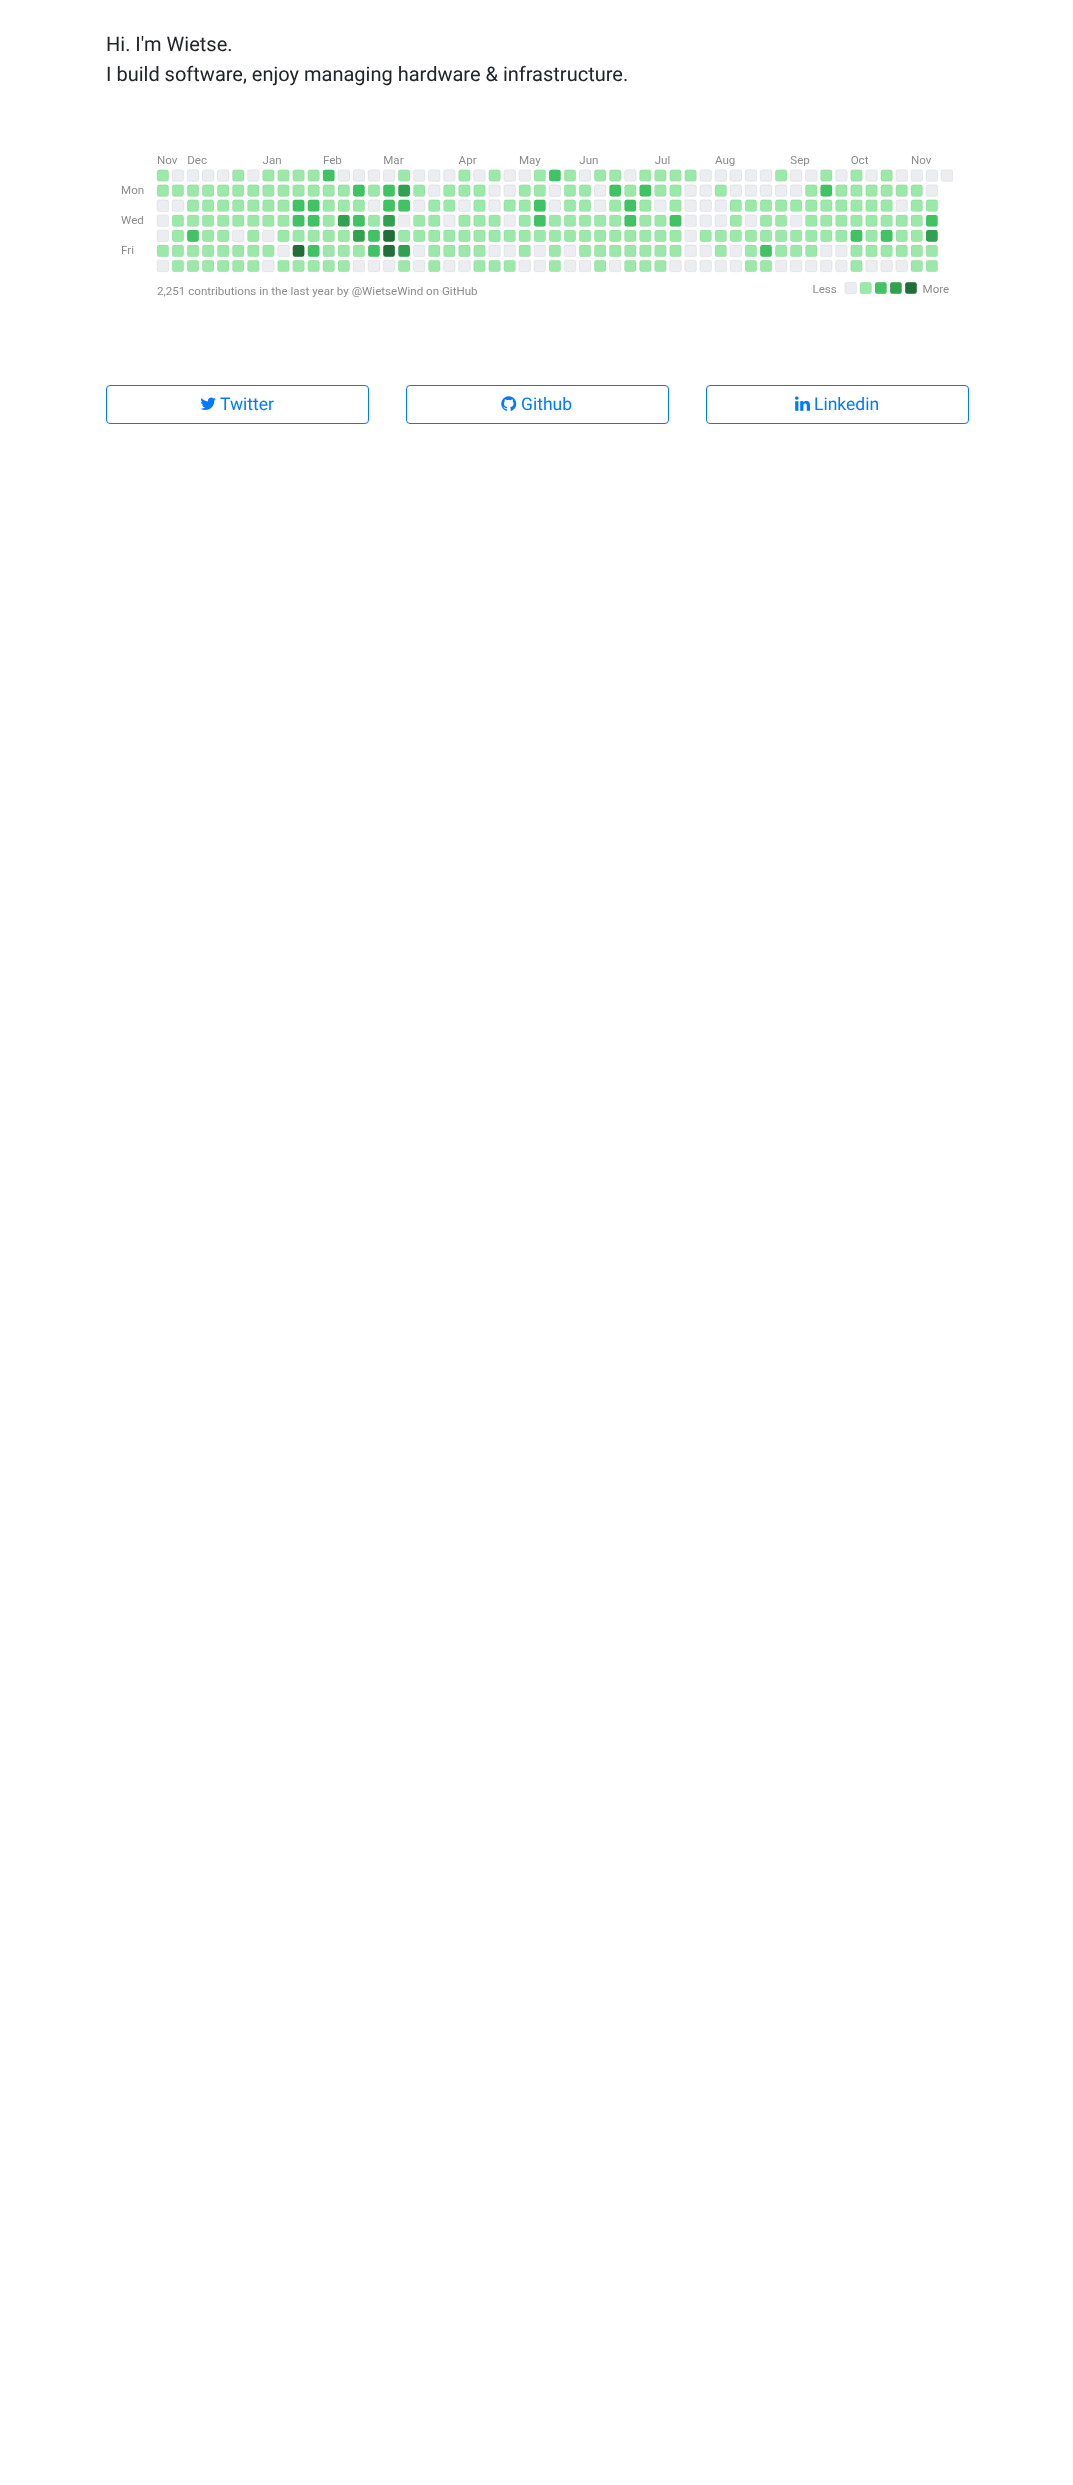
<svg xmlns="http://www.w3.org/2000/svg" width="1073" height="2485">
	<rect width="100%" height="100%" fill="#FFFFFF" />
	<g font-family="Roboto" font-size="20" fill="#212529">
		<text x="106" y="51">Hi. I'm Wietse.</text>
		<text x="106" y="81">I build software, enjoy managing hardware &amp; infrastructure.</text>
	</g>
	<image x="121" y="156" width="832" height="141" href="assets/img1.png" />
	<rect x="106.5" y="385.5" width="262" height="38" rx="3.5" fill="none" stroke="#007BFF" />
	<image x="200" y="397" width="16" height="13" href="assets/img2.png" />
	<text x="220" y="410" font-family="Roboto" font-size="17.5" fill="#007BFF">Twitter</text>
	<rect x="406.5" y="385.5" width="262" height="38" rx="3.5" fill="none" stroke="#007BFF" />
	<image x="501" y="396" width="16" height="15" href="assets/img3.png" />
	<text x="521" y="410" font-family="Roboto" font-size="17.5" fill="#007BFF">Github</text>
	<rect x="706.5" y="385.5" width="262" height="38" rx="3.5" fill="none" stroke="#007BFF" />
	<image x="795" y="396" width="15" height="15" href="assets/img4.png" />
	<text x="814" y="410" font-family="Roboto" font-size="17.5" fill="#007BFF">Linkedin</text>
</svg>
